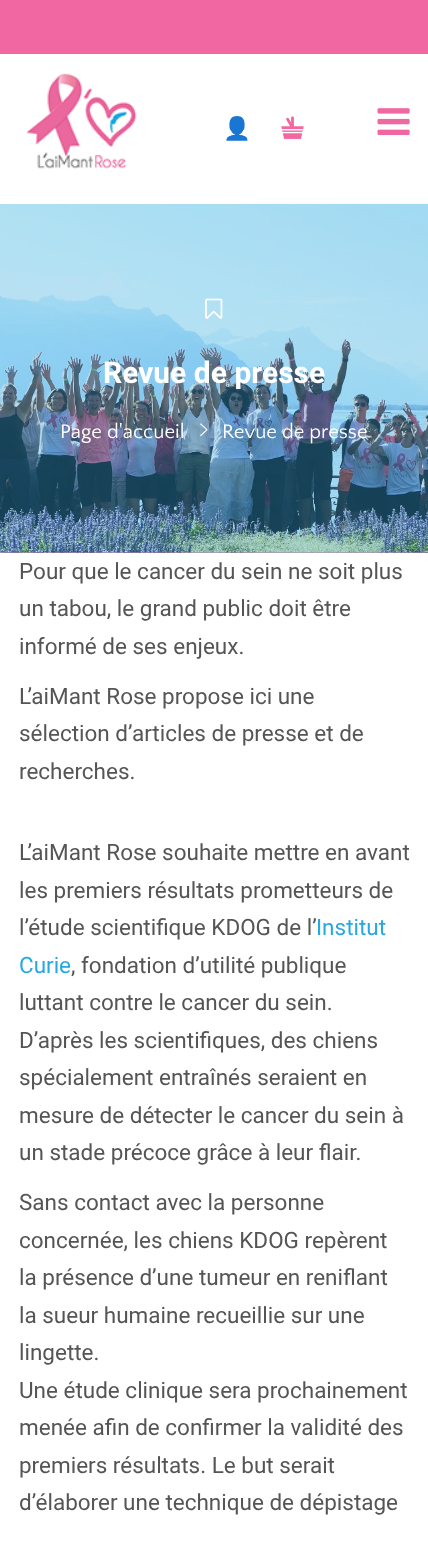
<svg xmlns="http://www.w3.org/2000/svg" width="428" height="1541">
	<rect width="100%" height="100%" fill="#FFFFFF" />
	<rect x="0" y="0" width="428" height="54" fill="#F067A1" />
	<image x="26" y="73" width="111" height="96" href="assets/img1.png" />
	<text x="223" y="136" font-family="Noto Color Emoji" font-size="22.5" font-weight="700" fill="#F067A1">👤</text>
	<image x="281" y="116" width="23" height="23" href="assets/img2.png" />
	<image x="377" y="108" width="33" height="27" href="assets/img3.png" />
	<rect x="0" y="552" width="428" height="1" fill="#AE7EB6" />
	<image x="0" y="203" width="428" height="350" href="assets/img4.png" />
	<image x="205" y="298" width="18" height="21" href="assets/img5.png" />
	<text x="103" y="383" font-family="Roboto" font-size="30" font-weight="700" fill="#FFFFFF">Revue de presse</text>
	<text x="60" y="438" font-family="Quattrocento Sans" font-size="20.5" fill="#FFFFFF">Page d'accueil</text>
	<image x="200" y="423" width="8" height="14" href="assets/img6.png" />
	<text x="222" y="438" font-family="Quattrocento Sans" font-size="20.5" fill="#FFFFFF">Revue de presse</text>
	<g font-family="Roboto" font-size="22.5" fill="#555555">
		<text x="19" y="579">Pour que le cancer du sein ne soit plus</text>
		<text x="19" y="616">un tabou, le grand public doit être</text>
		<text x="19" y="654">informé de ses enjeux.</text>
		<text x="19" y="704">L’aiMant Rose propose ici une</text>
		<text x="19" y="741">sélection d’articles de presse et de</text>
		<text x="19" y="779">recherches.</text>
		<text x="19" y="860">L’aiMant Rose souhaite mettre en avant</text>
		<text x="19" y="898">les premiers résultats prometteurs de</text>
		<text x="19" y="935">l’étude scientifique KDOG de l’</text>
	</g>
	<g font-family="Roboto" font-size="22.5" fill="#25A9E0">
		<text x="316" y="935">Institut</text>
		<text x="19" y="973">Curie</text>
	</g>
	<g font-family="Roboto" font-size="22.5" fill="#555555">
		<text x="71" y="973">, fondation d’utilité publique</text>
		<text x="19" y="1010">luttant contre le cancer du sein.</text>
		<text x="19" y="1048">D’après les scientifiques, des chiens</text>
		<text x="19" y="1085">spécialement entraînés seraient en</text>
		<text x="19" y="1123">mesure de détecter le cancer du sein à</text>
		<text x="19" y="1160">un stade précoce grâce à leur flair.</text>
		<text x="19" y="1210">Sans contact avec la personne</text>
		<text x="19" y="1248">concernée, les chiens KDOG repèrent</text>
		<text x="19" y="1285">la présence d’une tumeur en reniflant</text>
		<text x="19" y="1323">la sueur humaine recueillie sur une</text>
		<text x="19" y="1360">lingette.</text>
		<text x="19" y="1398">Une étude clinique sera prochainement</text>
		<text x="19" y="1435">menée afin de confirmer la validité des</text>
		<text x="19" y="1473">premiers résultats. Le but serait</text>
		<text x="19" y="1510">d’élaborer une technique de dépistage</text>
	</g>
</svg>
